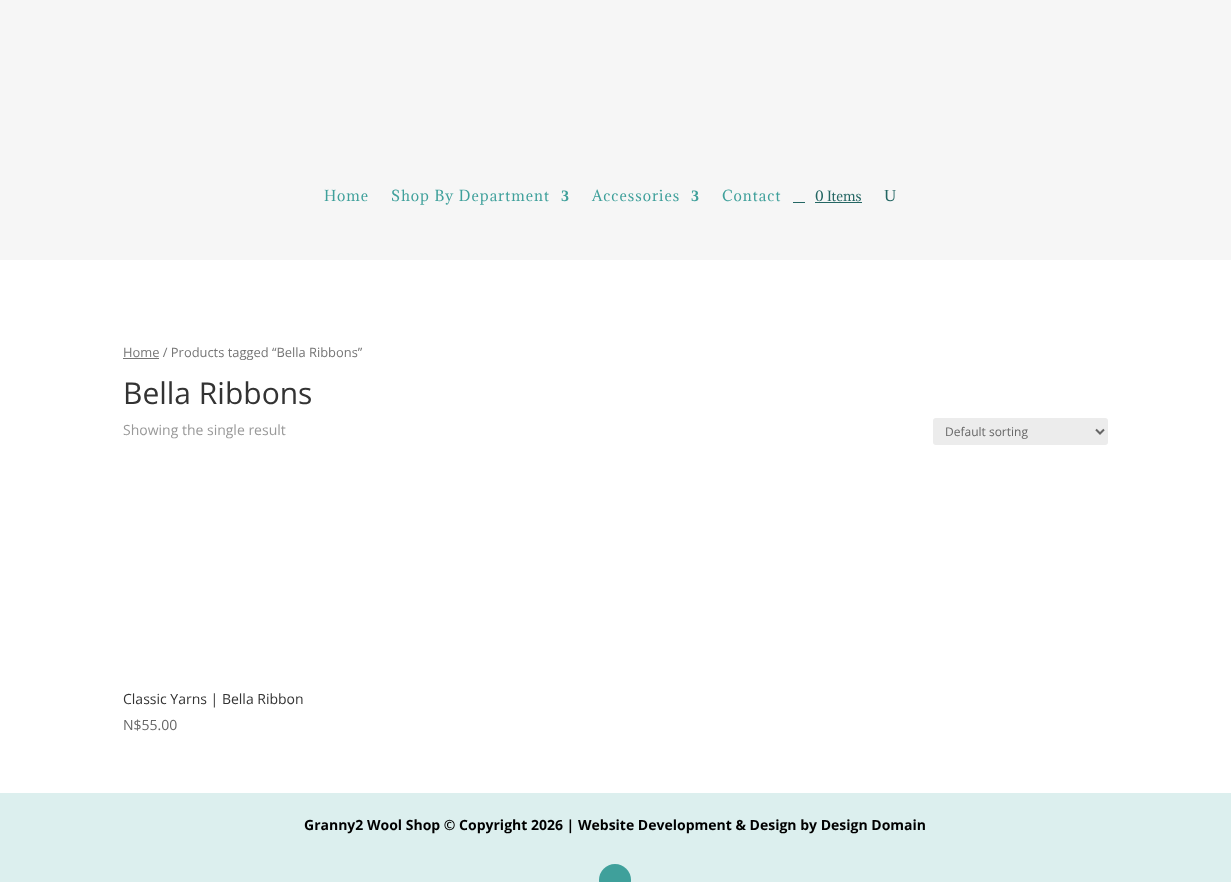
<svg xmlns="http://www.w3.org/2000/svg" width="1231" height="882">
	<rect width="100%" height="100%" fill="#FFFFFF" />
	<rect x="0" y="0" width="1231" height="260" fill="#F6F6F6" />
	<g font-family="Adamina" font-size="14" letter-spacing="1" fill="#3FA09B">
		<text x="324" y="201">Home</text>
		<text x="391" y="201">Shop By Department</text>
	</g>
	<text x="561" y="201" font-family="Liberation Serif" font-size="16" font-weight="700" letter-spacing="1" fill="#3FA09B">3</text>
	<text x="592" y="201" font-family="Adamina" font-size="14" letter-spacing="1" fill="#3FA09B">Accessories</text>
	<text x="691" y="201" font-family="Liberation Serif" font-size="16" font-weight="700" letter-spacing="1" fill="#3FA09B">3</text>
	<text x="722" y="201" font-family="Adamina" font-size="14" letter-spacing="1" fill="#3FA09B">Contact</text>
	<text x="815" y="201" font-family="Adamina" font-size="13" fill="#246663">0 Items</text>
	<rect x="815" y="202" width="47" height="1" fill="#246663" />
	<rect x="793" y="202" width="12" height="1" fill="#246663" />
	<text x="884" y="201" font-family="Liberation Serif" font-size="17" fill="#246663">U</text>
	<rect x="123" y="358" width="36" height="1" fill="#767676" />
	<text x="123" y="357" font-family="Open Sans" font-size="12.9" fill="#767676">Home / Products tagged “Bella Ribbons”</text>
	<text x="123" y="404" font-family="Open Sans" font-size="30" fill="#333333">Bella Ribbons</text>
	<text x="123" y="435" font-family="Open Sans" font-size="14" fill="#999999">Showing the single result</text>
	<rect x="933" y="418" width="175" height="27" rx="3" fill="#ECECEC" />
	<path d="M1096 429.5L1100 433.5L1104 429.5" fill="none" stroke="#666666" stroke-width="2" />
	<text x="945" y="436" font-family="Open Sans" font-size="12" fill="#666666">Default sorting</text>
	<text x="123" y="704" font-family="Open Sans" font-size="14" fill="#333333">Classic Yarns | Bella Ribbon</text>
	<text x="123" y="730" font-family="Open Sans" font-size="14" fill="#666666">N$55.00</text>
	<rect x="0" y="793" width="1231" height="89" fill="#DCEFEE" />
	<text x="304" y="830" font-family="Open Sans" font-size="14" font-weight="700" fill="#000000">Granny2 Wool Shop © Copyright 2026 | Website Development &amp; Design by Design Domain</text>
	<circle cx="615" cy="880" r="16" fill="#3FA09B" />
</svg>
